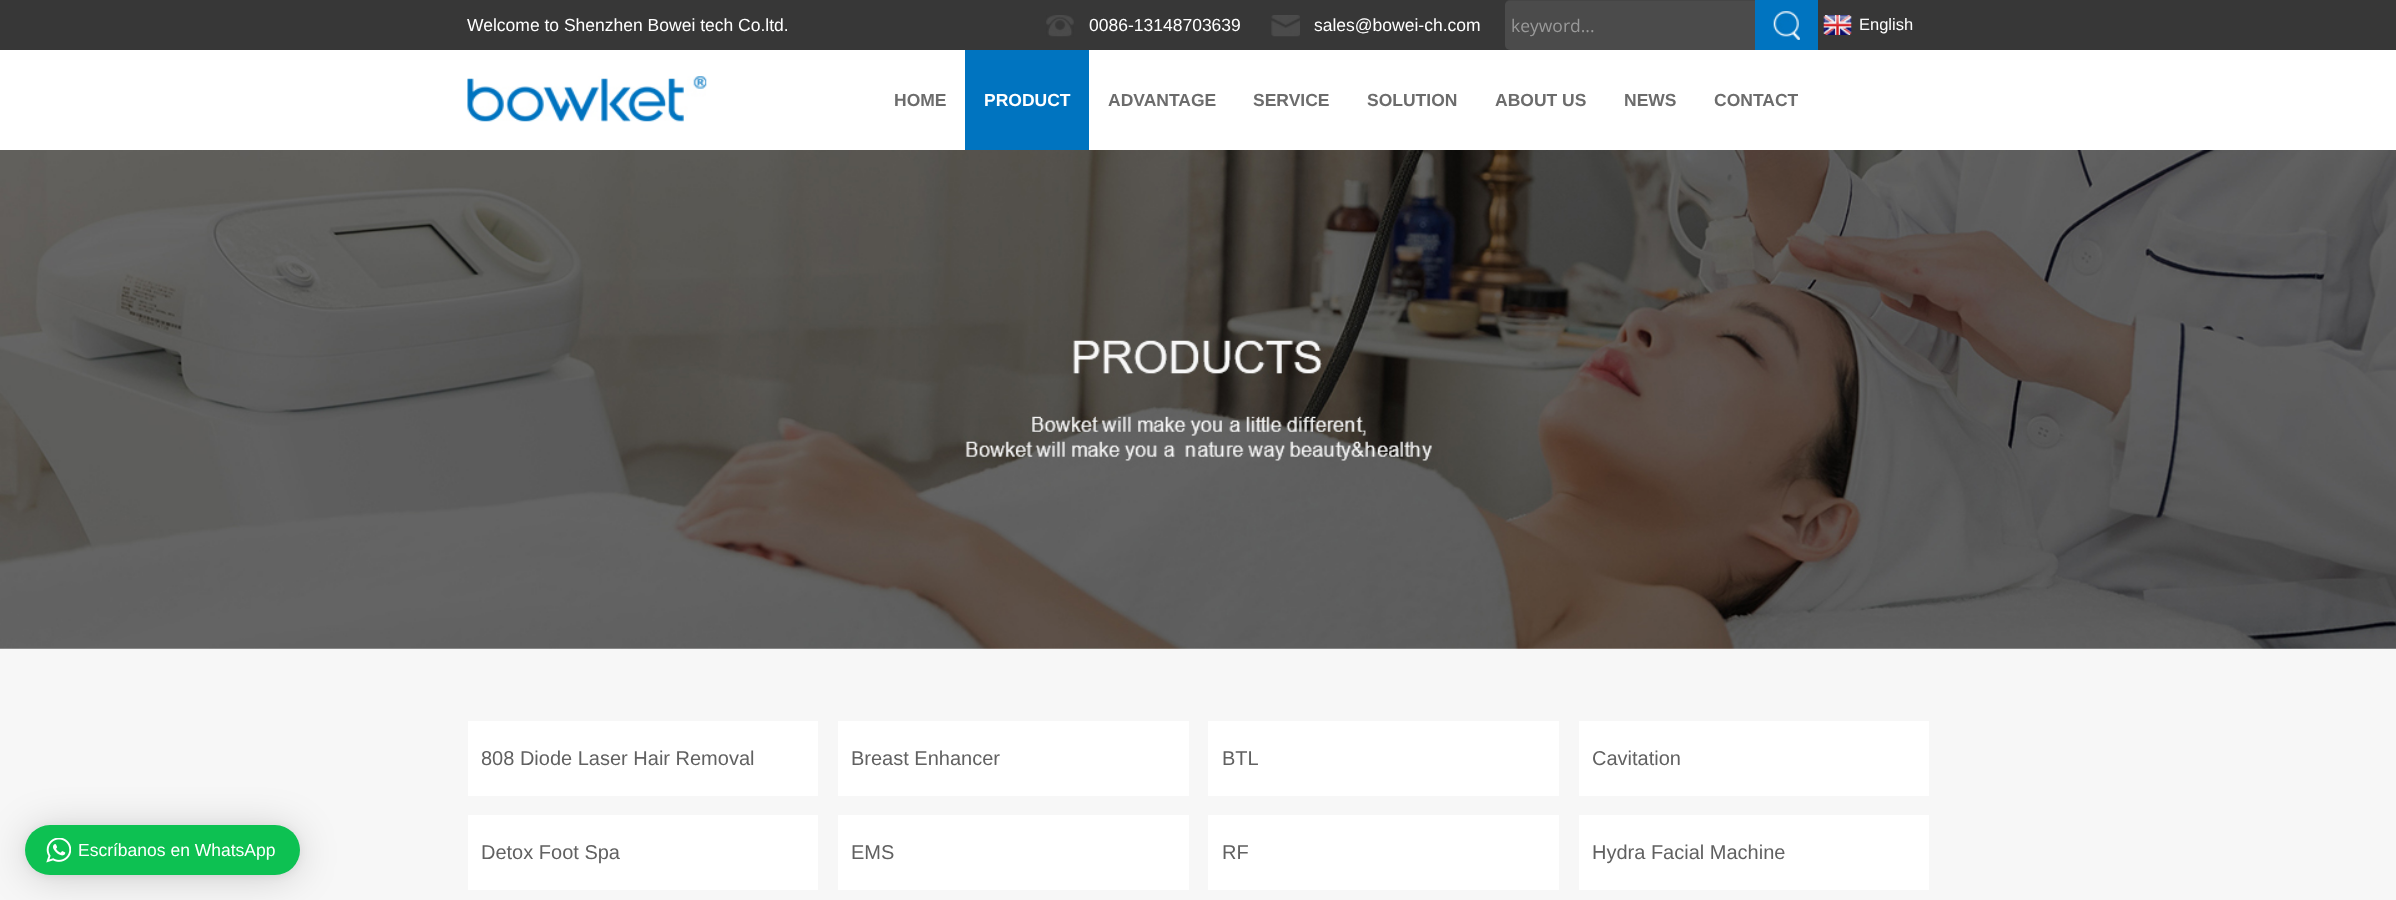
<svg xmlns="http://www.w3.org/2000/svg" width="2396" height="900">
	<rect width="100%" height="100%" fill="#FFFFFF" />
	<rect x="0" y="0" width="2396" height="50" fill="#373737" />
	<text x="467" y="31" font-family="Liberation Sans" font-size="17.5" fill="#FFFFFF">Welcome to Shenzhen Bowei tech Co.ltd.</text>
	<image x="1046" y="15" width="28" height="22" href="assets/img1.png" />
	<text x="1089" y="31" font-family="Liberation Sans" font-size="17.5" fill="#FFFFFF">0086-13148703639</text>
	<image x="1271" y="15" width="29" height="22" href="assets/img2.png" />
	<text x="1314" y="31" font-family="Liberation Sans" font-size="17.5" fill="#FFFFFF">sales@bowei-ch.com</text>
	<rect x="1505" y="0" width="313" height="50" rx="5" fill="#4B4B4B" />
	<path d="M1510 1H1812C1815 1 1818 3 1818 6C1818 3 1816 0 1813 0H1510C1507 0 1505 3 1505 6C1505 3 1507 1 1510 1Z" fill="#000000" fill-opacity="0.07" />
	<text x="1511" y="32" font-family="Open Sans" font-size="17.5" fill="#999999">keyword...</text>
	<rect x="1755" y="0" width="63" height="50" fill="#0074C0" />
	<image x="1773" y="11" width="27" height="29" href="assets/img3.png" />
	<image x="1823" y="15" width="29" height="20" href="assets/img4.png" />
	<text x="1859" y="30" font-family="Liberation Sans" font-size="16.5" fill="#FFFFFF">English</text>
	<image x="467" y="76" width="240" height="46" href="assets/img5.png" />
	<text x="894" y="106" font-family="Liberation Sans" font-size="17.5" font-weight="700" fill="#6C6C6C">HOME</text>
	<rect x="965" y="50" width="124" height="100" fill="#0074C0" />
	<text x="984" y="106" font-family="Liberation Sans" font-size="17.5" font-weight="700" fill="#FFFFFF">PRODUCT</text>
	<g font-family="Liberation Sans" font-size="17.5" font-weight="700" fill="#6C6C6C">
		<text x="1108" y="106">ADVANTAGE</text>
		<text x="1253" y="106">SERVICE</text>
		<text x="1367" y="106">SOLUTION</text>
		<text x="1495" y="106">ABOUT US</text>
		<text x="1624" y="106">NEWS</text>
		<text x="1714" y="106">CONTACT</text>
	</g>
	<rect x="0" y="649" width="2396" height="251" fill="#F7F7F7" />
	<rect x="25" y="828" width="275" height="50" rx="25" fill="#000000" fill-opacity="0.16" filter="blur(20px)" />
	<rect x="25" y="826" width="275" height="50" rx="25" fill="#000000" fill-opacity="0.06" filter="blur(4px)" />
	<rect x="25" y="825" width="275" height="50" rx="25" fill="#0DC152" />
	<image x="46" y="838" width="25" height="25" href="assets/img6.png" />
	<text x="78" y="856" font-family="Liberation Sans" font-size="17.5" fill="#FFFFFF">Escríbanos en WhatsApp</text>
	<image x="0" y="150" width="2396" height="499" href="assets/img7.png" />
	<rect x="468" y="721" width="350" height="75" fill="#FFFFFF" />
	<text x="481" y="765" font-family="Liberation Sans" font-size="20" fill="#616161">808 Diode Laser Hair Removal</text>
	<rect x="838" y="721" width="351" height="75" fill="#FFFFFF" />
	<text x="851" y="765" font-family="Liberation Sans" font-size="20" fill="#616161">Breast Enhancer</text>
	<rect x="1208" y="721" width="351" height="75" fill="#FFFFFF" />
	<text x="1222" y="765" font-family="Liberation Sans" font-size="20" fill="#616161">BTL</text>
	<rect x="1579" y="721" width="350" height="75" fill="#FFFFFF" />
	<text x="1592" y="765" font-family="Liberation Sans" font-size="20" fill="#616161">Cavitation</text>
	<rect x="468" y="815" width="350" height="75" fill="#FFFFFF" />
	<text x="481" y="859" font-family="Liberation Sans" font-size="20" fill="#616161">Detox Foot Spa</text>
	<rect x="838" y="815" width="351" height="75" fill="#FFFFFF" />
	<text x="851" y="859" font-family="Liberation Sans" font-size="20" fill="#616161">EMS</text>
	<rect x="1208" y="815" width="351" height="75" fill="#FFFFFF" />
	<text x="1222" y="859" font-family="Liberation Sans" font-size="20" fill="#616161">RF</text>
	<rect x="1579" y="815" width="350" height="75" fill="#FFFFFF" />
	<text x="1592" y="859" font-family="Liberation Sans" font-size="20" fill="#616161">Hydra Facial Machine</text>
</svg>
